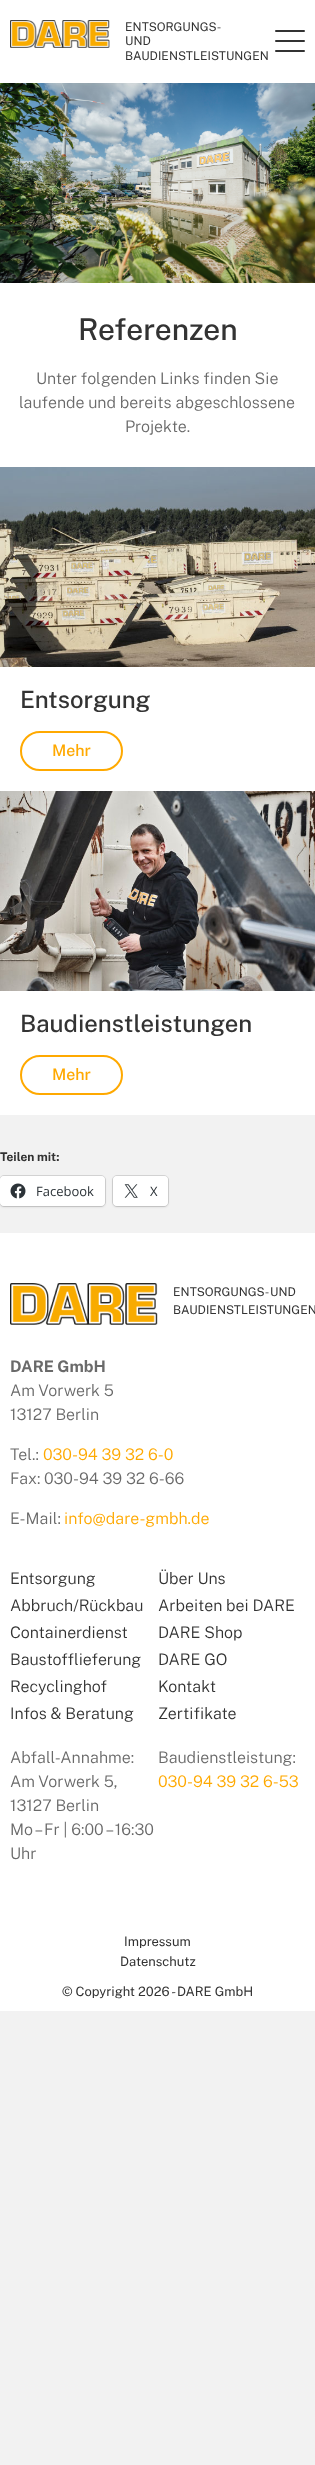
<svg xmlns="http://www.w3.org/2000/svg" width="315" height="2465">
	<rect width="100%" height="100%" fill="#F2F2F2" />
	<image x="0" y="83" width="315" height="200" href="assets/img2.png" />
	<rect x="-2" y="-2" width="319" height="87" fill="#000000" fill-opacity="0.05" filter="blur(2.5px)" />
	<rect x="0" y="0" width="315" height="83" fill="#FFFFFF" />
	<image x="10" y="20" width="100" height="28" href="assets/img1.png" />
	<g font-family="'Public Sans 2'" font-size="12" font-weight="100" fill="#333333">
		<text x="125" y="31">ENTSORGUNGS-</text>
		<text x="125" y="45">UND</text>
		<text x="125" y="60">BAUDIENSTLEISTUNGEN</text>
	</g>
	<rect x="275" y="40" width="30" height="2" rx="1" fill="#333333" />
	<rect x="275" y="30" width="30" height="2" rx="1" fill="#333333" />
	<rect x="275" y="50" width="30" height="2" rx="1" fill="#333333" />
	<rect x="0" y="283" width="315" height="184" fill="#FFFFFF" />
	<text x="78" y="340" font-family="'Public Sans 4'" font-size="30" font-weight="100" fill="#333333">Referenzen</text>
	<g font-family="'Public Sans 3'" font-size="16" font-weight="100" fill="#6A6A6A">
		<text x="36" y="384">Unter folgenden Links finden Sie</text>
		<text x="19" y="408">laufende und bereits abgeschlossene</text>
		<text x="125" y="432">Projekte.</text>
	</g>
	<image x="0" y="467" width="315" height="200" href="assets/img3.png" />
	<rect x="0" y="667" width="315" height="124" fill="#FFFFFF" />
	<text x="20" y="708" font-family="'Public Sans 4'" font-size="24" font-weight="100" fill="#333333">Entsorgung</text>
	<rect x="21" y="732" width="101" height="38" rx="19" fill="none" stroke="#FFA900" stroke-width="2" />
	<text x="52" y="756" font-family="'Public Sans 4'" font-size="16" font-weight="100" fill="#FFA900">Mehr</text>
	<image x="0" y="791" width="315" height="200" href="assets/img4.png" />
	<rect x="0" y="991" width="315" height="124" fill="#FFFFFF" />
	<text x="20" y="1032" font-family="'Public Sans 4'" font-size="24" font-weight="100" fill="#333333">Baudienstleistungen</text>
	<rect x="21" y="1056" width="101" height="38" rx="19" fill="none" stroke="#FFA900" stroke-width="2" />
	<text x="52" y="1080" font-family="'Public Sans 4'" font-size="16" font-weight="100" fill="#FFA900">Mehr</text>
	<text x="0" y="1161" font-family="Public Sans" font-size="12" font-weight="100" fill="#333333">Teilen mit:</text>
	<rect x="-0.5" y="1175.5" width="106" height="31" rx="4.5" fill="none" stroke="#D5D5D5" />
	<rect x="0" y="1177" width="105" height="30" rx="4" fill="#000000" fill-opacity="0.12" filter="blur(1px)" />
	<rect x="0" y="1176" width="105" height="30" rx="4" fill="#FFFFFF" />
	<image x="10" y="1183" width="16" height="16" href="assets/img5.png" />
	<text x="36" y="1196" font-family="Open Sans" font-size="13" fill="#2C3338">Facebook</text>
	<rect x="112.5" y="1175.5" width="56" height="31" rx="4.5" fill="none" stroke="#D5D5D5" />
	<rect x="113" y="1177" width="55" height="30" rx="4" fill="#000000" fill-opacity="0.12" filter="blur(1px)" />
	<rect x="113" y="1176" width="55" height="30" rx="4" fill="#FFFFFF" />
	<image x="124" y="1184" width="14" height="14" href="assets/img6.png" />
	<text x="150" y="1196" font-family="Open Sans" font-size="13" fill="#2C3338">X</text>
	<rect x="0" y="1233" width="315" height="778" fill="#FFFFFF" />
	<image x="10" y="1283" width="148" height="42" href="assets/img7.png" />
	<g font-family="'Public Sans 2'" font-size="12" font-weight="100" fill="#333333">
		<text x="173" y="1296">ENTSORGUNGS- UND</text>
		<text x="173" y="1314">BAUDIENSTLEISTUNGEN</text>
	</g>
	<text x="10" y="1372" font-family="Public Sans" font-size="16" font-weight="100" fill="#6A6A6A">DARE GmbH</text>
	<g font-family="'Public Sans 3'" font-size="16" font-weight="100" fill="#6A6A6A">
		<text x="10" y="1396">Am Vorwerk 5</text>
		<text x="10" y="1420">13127 Berlin</text>
		<text x="10" y="1460">Tel.:</text>
	</g>
	<text x="43" y="1460" font-family="'Public Sans 3'" font-size="16" font-weight="100" fill="#FFA900">030-94 39 32 6-0</text>
	<g font-family="'Public Sans 3'" font-size="16" font-weight="100" fill="#6A6A6A">
		<text x="10" y="1484">Fax: 030-94 39 32 6-66</text>
		<text x="10" y="1524">E-Mail:</text>
	</g>
	<text x="64" y="1524" font-family="'Public Sans 3'" font-size="16" font-weight="100" fill="#FFA900">info@dare-gmbh.de</text>
	<g font-family="'Public Sans 3'" font-size="16" font-weight="100" fill="#333333">
		<text x="10" y="1584">Entsorgung</text>
		<text x="10" y="1611">Abbruch/Rückbau</text>
		<text x="10" y="1638">Containerdienst</text>
		<text x="10" y="1665">Baustofflieferung</text>
		<text x="10" y="1692">Recyclinghof</text>
		<text x="10" y="1719">Infos &amp; Beratung</text>
		<text x="158" y="1584">Über Uns</text>
		<text x="158" y="1611">Arbeiten bei DARE</text>
		<text x="158" y="1638">DARE Shop</text>
		<text x="158" y="1665">DARE GO</text>
		<text x="158" y="1692">Kontakt</text>
		<text x="158" y="1719">Zertifikate</text>
	</g>
	<g font-family="'Public Sans 3'" font-size="16" font-weight="100" fill="#6A6A6A">
		<text x="10" y="1763">Abfall-Annahme:</text>
		<text x="10" y="1787">Am Vorwerk 5,</text>
		<text x="10" y="1811">13127 Berlin</text>
		<text x="10" y="1835">Mo – Fr | 6:00 – 16:30</text>
		<text x="10" y="1859">Uhr</text>
		<text x="158" y="1763">Baudienstleistung:</text>
	</g>
	<text x="158" y="1787" font-family="'Public Sans 3'" font-size="16" font-weight="100" fill="#FFA900">030-94 39 32 6-53</text>
	<g font-family="'Public Sans 2'" font-size="13" font-weight="100" fill="#333333">
		<text x="124" y="1946">Impressum</text>
		<text x="120" y="1966">Datenschutz</text>
		<text x="62" y="1996">© Copyright 2026 - DARE GmbH</text>
	</g>
</svg>
